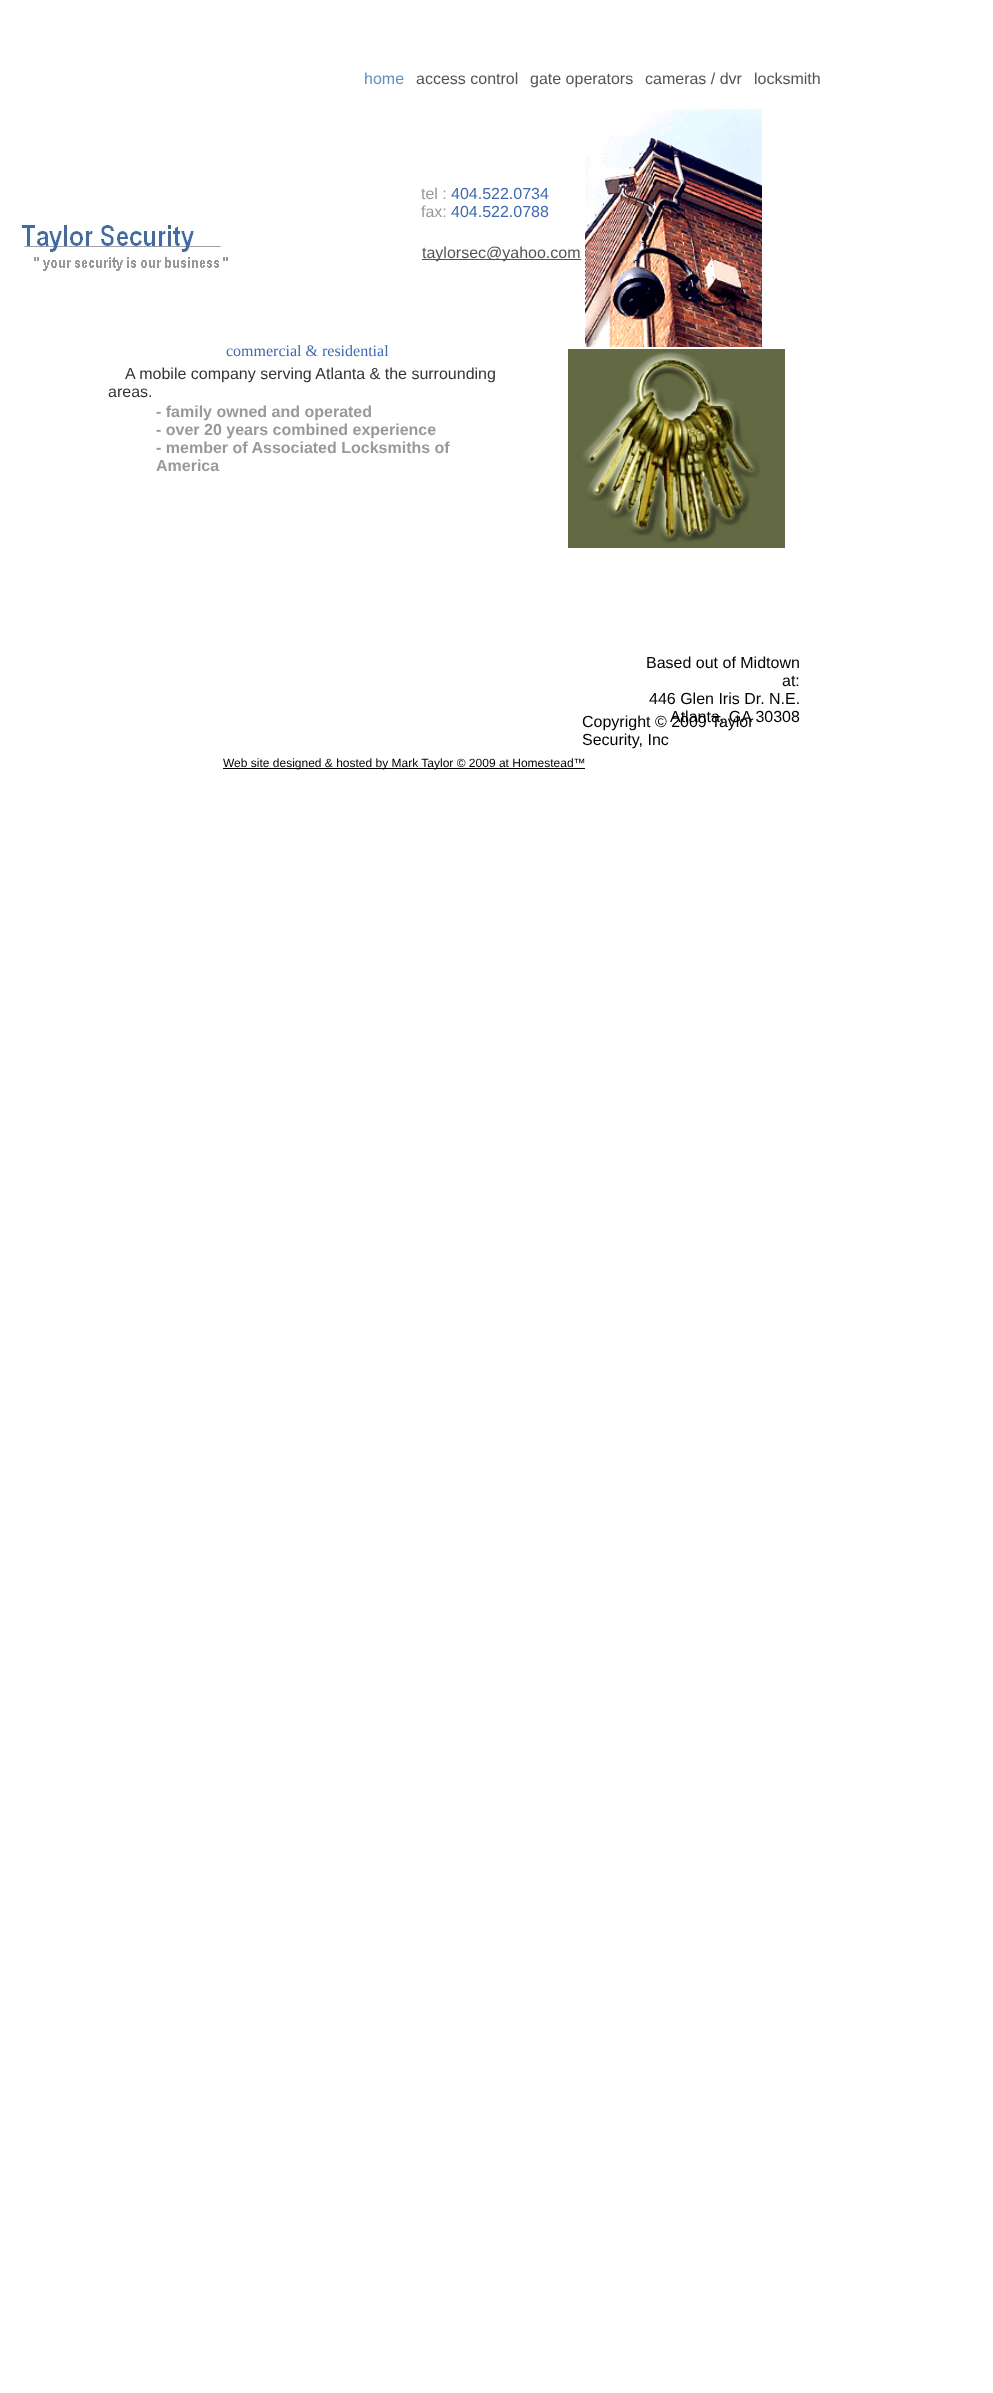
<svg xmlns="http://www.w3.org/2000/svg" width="993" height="2393">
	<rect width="100%" height="100%" fill="#FFFFFF" />
	<text x="364" y="84" font-family="Liberation Sans" font-size="16" fill="#5E8EBF">home</text>
	<g font-family="Liberation Sans" font-size="16" fill="#565353">
		<text x="416" y="84">access control</text>
		<text x="530" y="84">gate operators</text>
		<text x="645" y="84">cameras / dvr</text>
		<text x="754" y="84">locksmith</text>
	</g>
	<text x="421" y="199" font-family="Liberation Sans" font-size="16" fill="#999999">tel :</text>
	<text x="451" y="199" font-family="Liberation Sans" font-size="16" fill="#406AB0">404.522.0734</text>
	<text x="421" y="217" font-family="Liberation Sans" font-size="16" fill="#999999">fax:</text>
	<text x="451" y="217" font-family="Liberation Sans" font-size="16" fill="#406AB0">404.522.0788</text>
	<image x="585" y="109" width="177" height="238" href="assets/img1.png" />
	<image x="19" y="224" width="209" height="47" href="assets/img2.png" />
	<rect x="422" y="259" width="159" height="1" fill="#565353" />
	<text x="422" y="258" font-family="Liberation Sans" font-size="16" fill="#565353">taylorsec@yahoo.com</text>
	<text x="226" y="356" font-family="Liberation Serif" font-size="16" fill="#406AB0">commercial &amp; residential</text>
	<image x="568" y="349" width="217" height="199" href="assets/img3.png" />
	<g font-family="Liberation Sans" font-size="16" fill="#363434">
		<text x="125" y="379">A mobile company serving Atlanta &amp; the surrounding</text>
		<text x="108" y="397">areas.</text>
	</g>
	<g font-family="Liberation Sans" font-size="16" font-weight="700" fill="#999999">
		<text x="156" y="417">- family owned and operated</text>
		<text x="156" y="435">- over 20 years combined experience</text>
		<text x="156" y="453">- member of Associated Locksmiths of</text>
		<text x="156" y="471">America</text>
	</g>
	<g font-family="Liberation Sans" font-size="16" fill="#000000">
		<text x="646" y="668">Based out of Midtown</text>
		<text x="782" y="686">at:</text>
		<text x="649" y="704">446 Glen Iris Dr. N.E.</text>
		<text x="582" y="727">Copyright © 2009 Taylor</text>
		<text x="670" y="722">Atlanta, GA 30308</text>
		<text x="582" y="745">Security, Inc</text>
	</g>
	<rect x="223" y="768" width="362" height="1" fill="#000000" />
	<text x="223" y="767" font-family="Liberation Sans" font-size="12" fill="#000000">Web site designed &amp; hosted by Mark Taylor © 2009 at Homestead™</text>
</svg>
